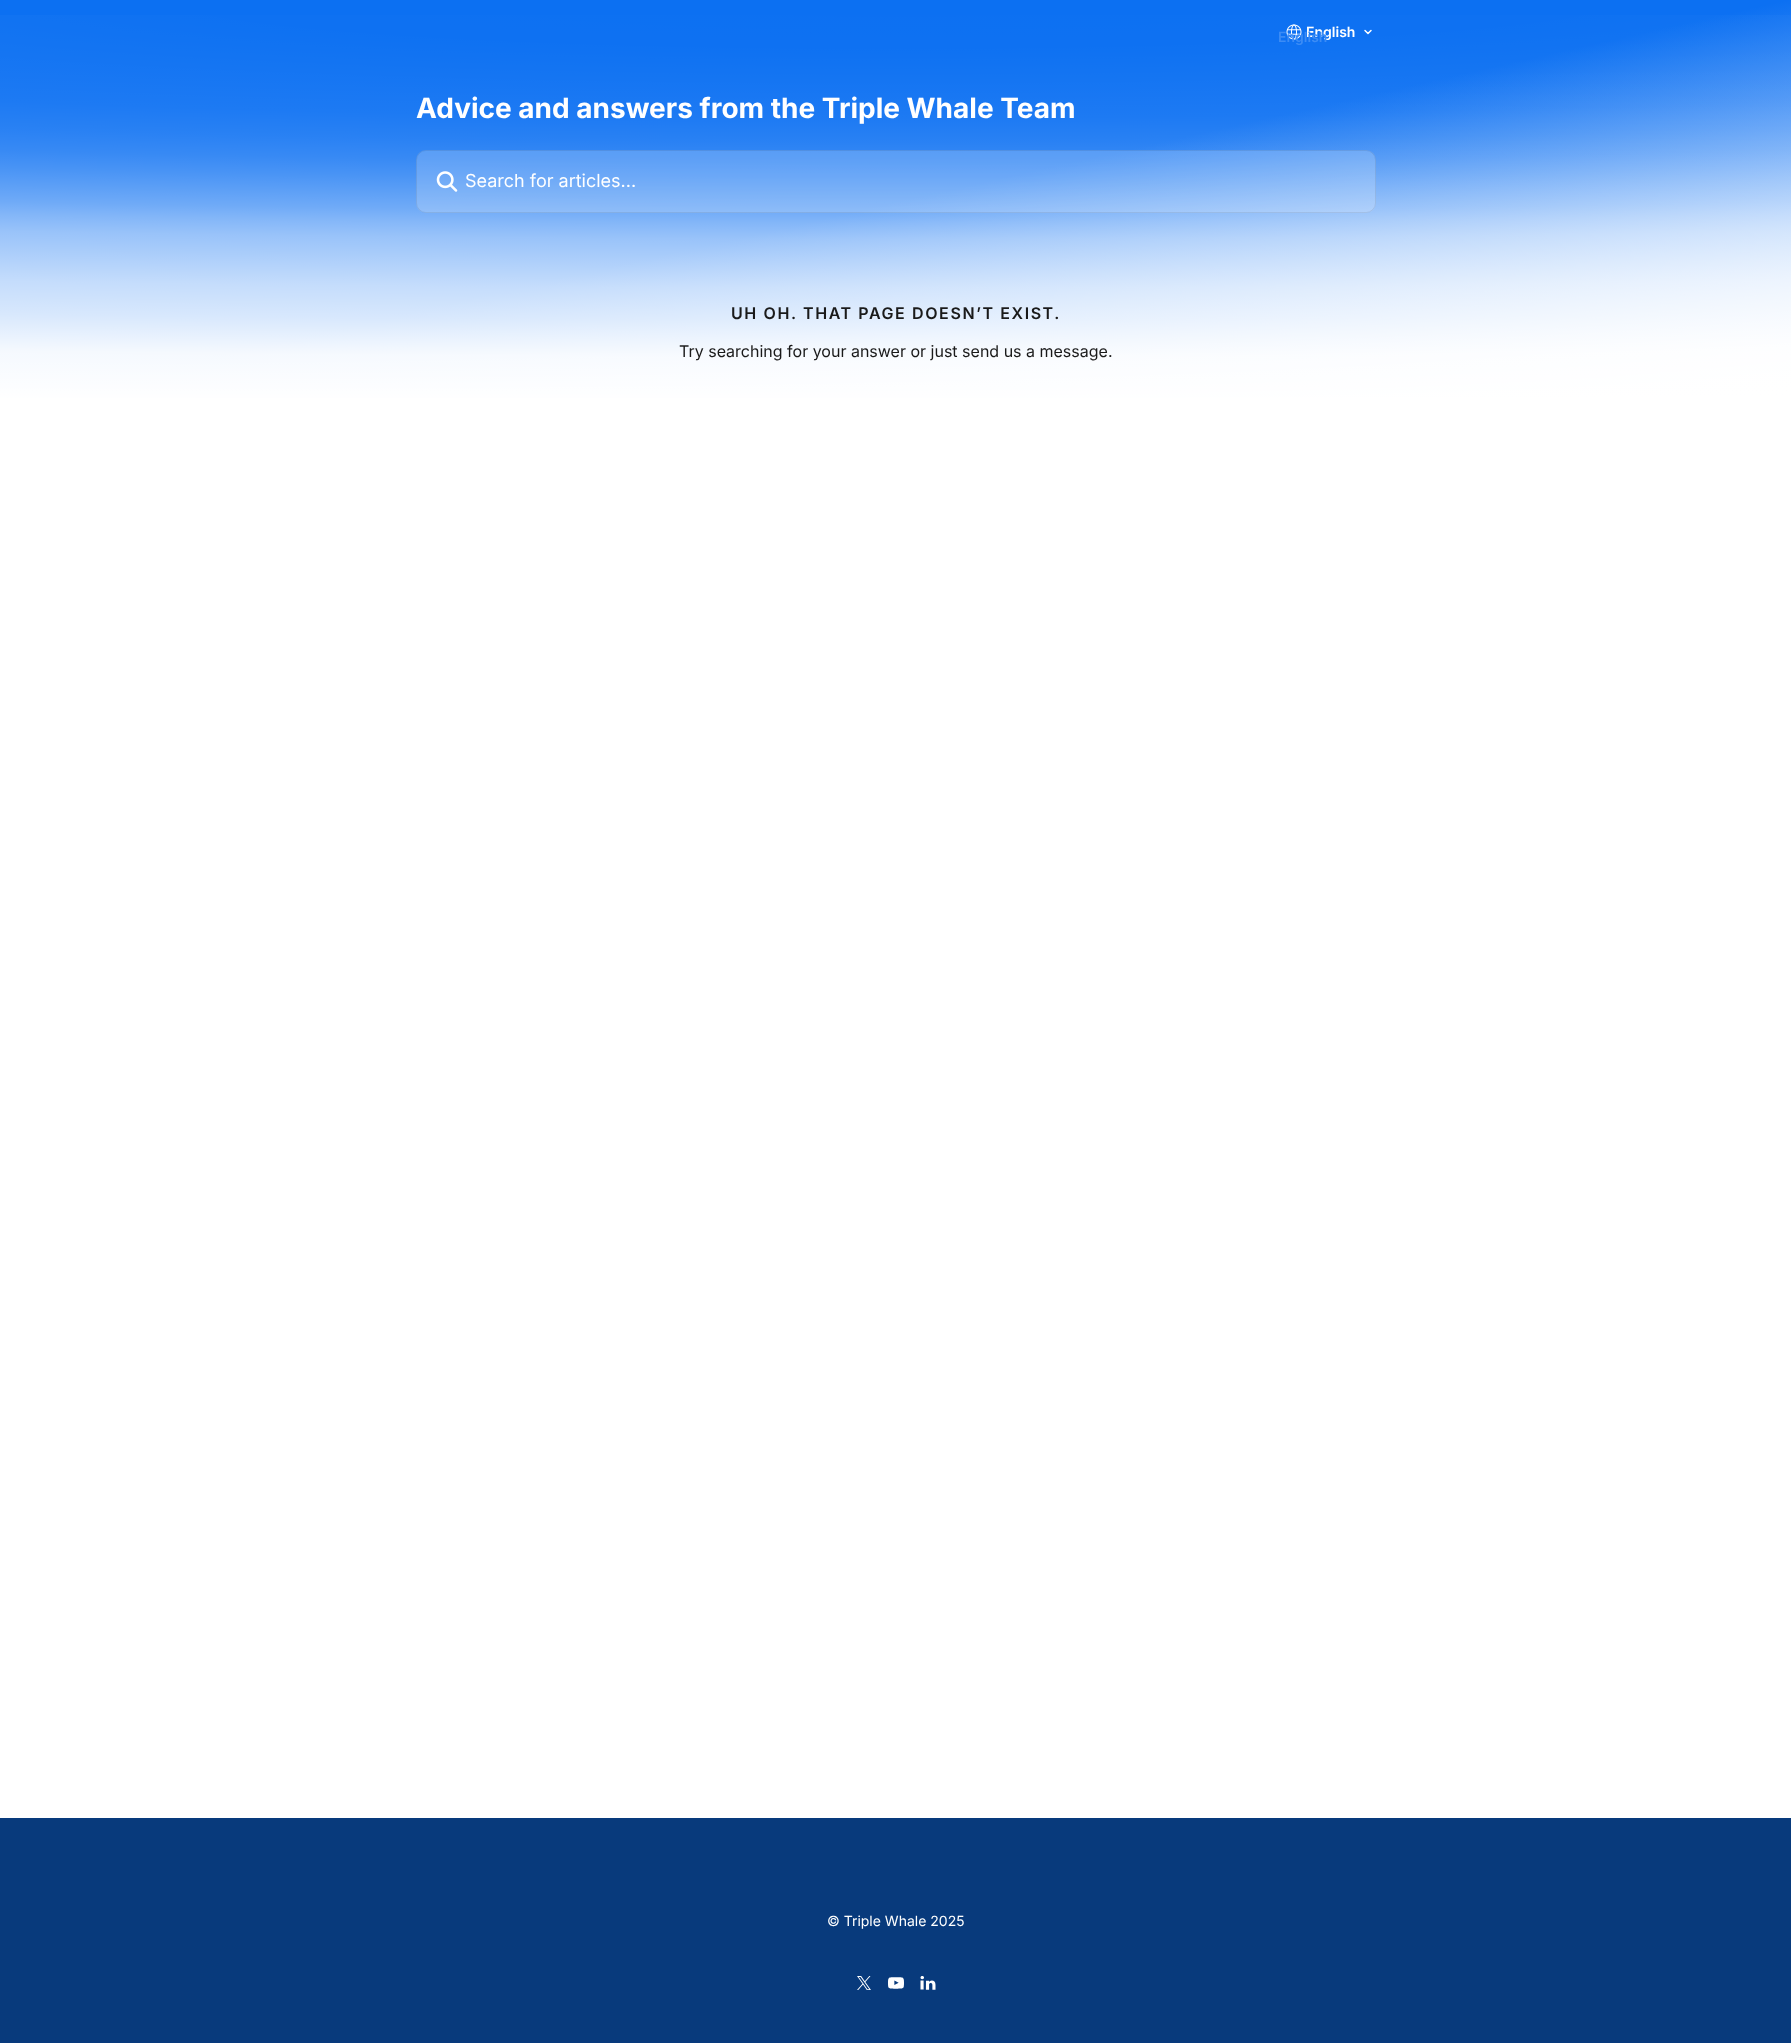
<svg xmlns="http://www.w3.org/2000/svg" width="1791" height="2043">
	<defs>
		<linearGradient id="g1" gradientUnits="userSpaceOnUse" x1="808" y1="-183" x2="983" y2="588"><stop offset="0" stop-color="#0C70F2" /><stop offset="0.5" stop-color="#0C70F2" /><stop offset="1" stop-color="#FFFFFF" /></linearGradient>
		<radialGradient id="g2" gradientUnits="userSpaceOnUse" cx="0" cy="0" r="1" gradientTransform="matrix(5971 0 0 405 896 0)"><stop offset="0" stop-color="#FFFFFF" stop-opacity="0" /><stop offset="0.12" stop-color="#FFFFFF" stop-opacity="0.01" /><stop offset="0.21" stop-color="#FFFFFF" stop-opacity="0.04" /><stop offset="0.29" stop-color="#FFFFFF" stop-opacity="0.07" /><stop offset="0.35" stop-color="#FFFFFF" stop-opacity="0.12" /><stop offset="0.4" stop-color="#FFFFFF" stop-opacity="0.18" /><stop offset="0.44" stop-color="#FFFFFF" stop-opacity="0.25" /><stop offset="0.48" stop-color="#FFFFFF" stop-opacity="0.33" /><stop offset="0.52" stop-color="#FFFFFF" stop-opacity="0.41" /><stop offset="0.55" stop-color="#FFFFFF" stop-opacity="0.49" /><stop offset="0.59" stop-color="#FFFFFF" stop-opacity="0.58" /><stop offset="0.65" stop-color="#FFFFFF" stop-opacity="0.67" /><stop offset="0.71" stop-color="#FFFFFF" stop-opacity="0.76" /><stop offset="0.79" stop-color="#FFFFFF" stop-opacity="0.84" /><stop offset="0.88" stop-color="#FFFFFF" stop-opacity="0.96" /><stop offset="1" stop-color="#FFFFFF" /></radialGradient>
	</defs>
	<rect width="100%" height="100%" fill="#FFFFFF" />
	<rect x="0" y="0" width="1791" height="398" fill="url(#g1)" />
	<rect x="0" y="15" width="1791" height="383" fill="url(#g2)" />
	<image x="1286" y="24" width="16" height="16" href="assets/img1.png" />
	<text x="1306" y="37" font-family="Inter" font-size="14" font-weight="600" fill="#FFFFFF">English</text>
	<text x="1278" y="42" font-family="Inter" font-size="14" font-weight="600" fill="#3C8CF5">English</text>
	<path d="M1365 30.5L1368 33.5L1371 30.5" fill="none" stroke="#FFFFFF" stroke-width="1.5" stroke-linecap="round" stroke-linejoin="round" />
	<text x="416" y="118" font-family="Inter" font-size="28" font-weight="700" fill="#FFFFFF">Advice and answers from the Triple Whale Team</text>
	<rect x="416" y="150" width="960" height="63" rx="10" fill="#FFFFFF" fill-opacity="0.2" />
	<rect x="416.5" y="150.5" width="959" height="62" rx="9.5" fill="none" stroke="#000000" stroke-opacity="0.08" />
	<image x="436" y="171" width="22" height="21" href="assets/img2.png" />
	<text x="465" y="187" font-family="Inter" font-size="18" fill="#FFFFFF">Search for articles...</text>
	<text x="731" y="319" font-family="Inter" font-size="16" font-weight="600" letter-spacing="1.6" fill="#1A1A1A">UH OH. THAT PAGE DOESN’T EXIST.</text>
	<text x="679" y="357" font-family="Inter" font-size="16" fill="#1A1A1A">Try searching for your answer or just send us a message.</text>
	<rect x="0" y="1818" width="1791" height="225" fill="#083A7C" />
	<text x="827" y="1926" font-family="Inter" font-size="14" fill="#FFFFFF">© Triple Whale 2025</text>
	<image x="857" y="1976" width="14" height="14" href="assets/img3.png" />
	<image x="888" y="1977" width="16" height="12" href="assets/img4.png" />
	<image x="920" y="1976" width="16" height="14" href="assets/img5.png" />
</svg>
